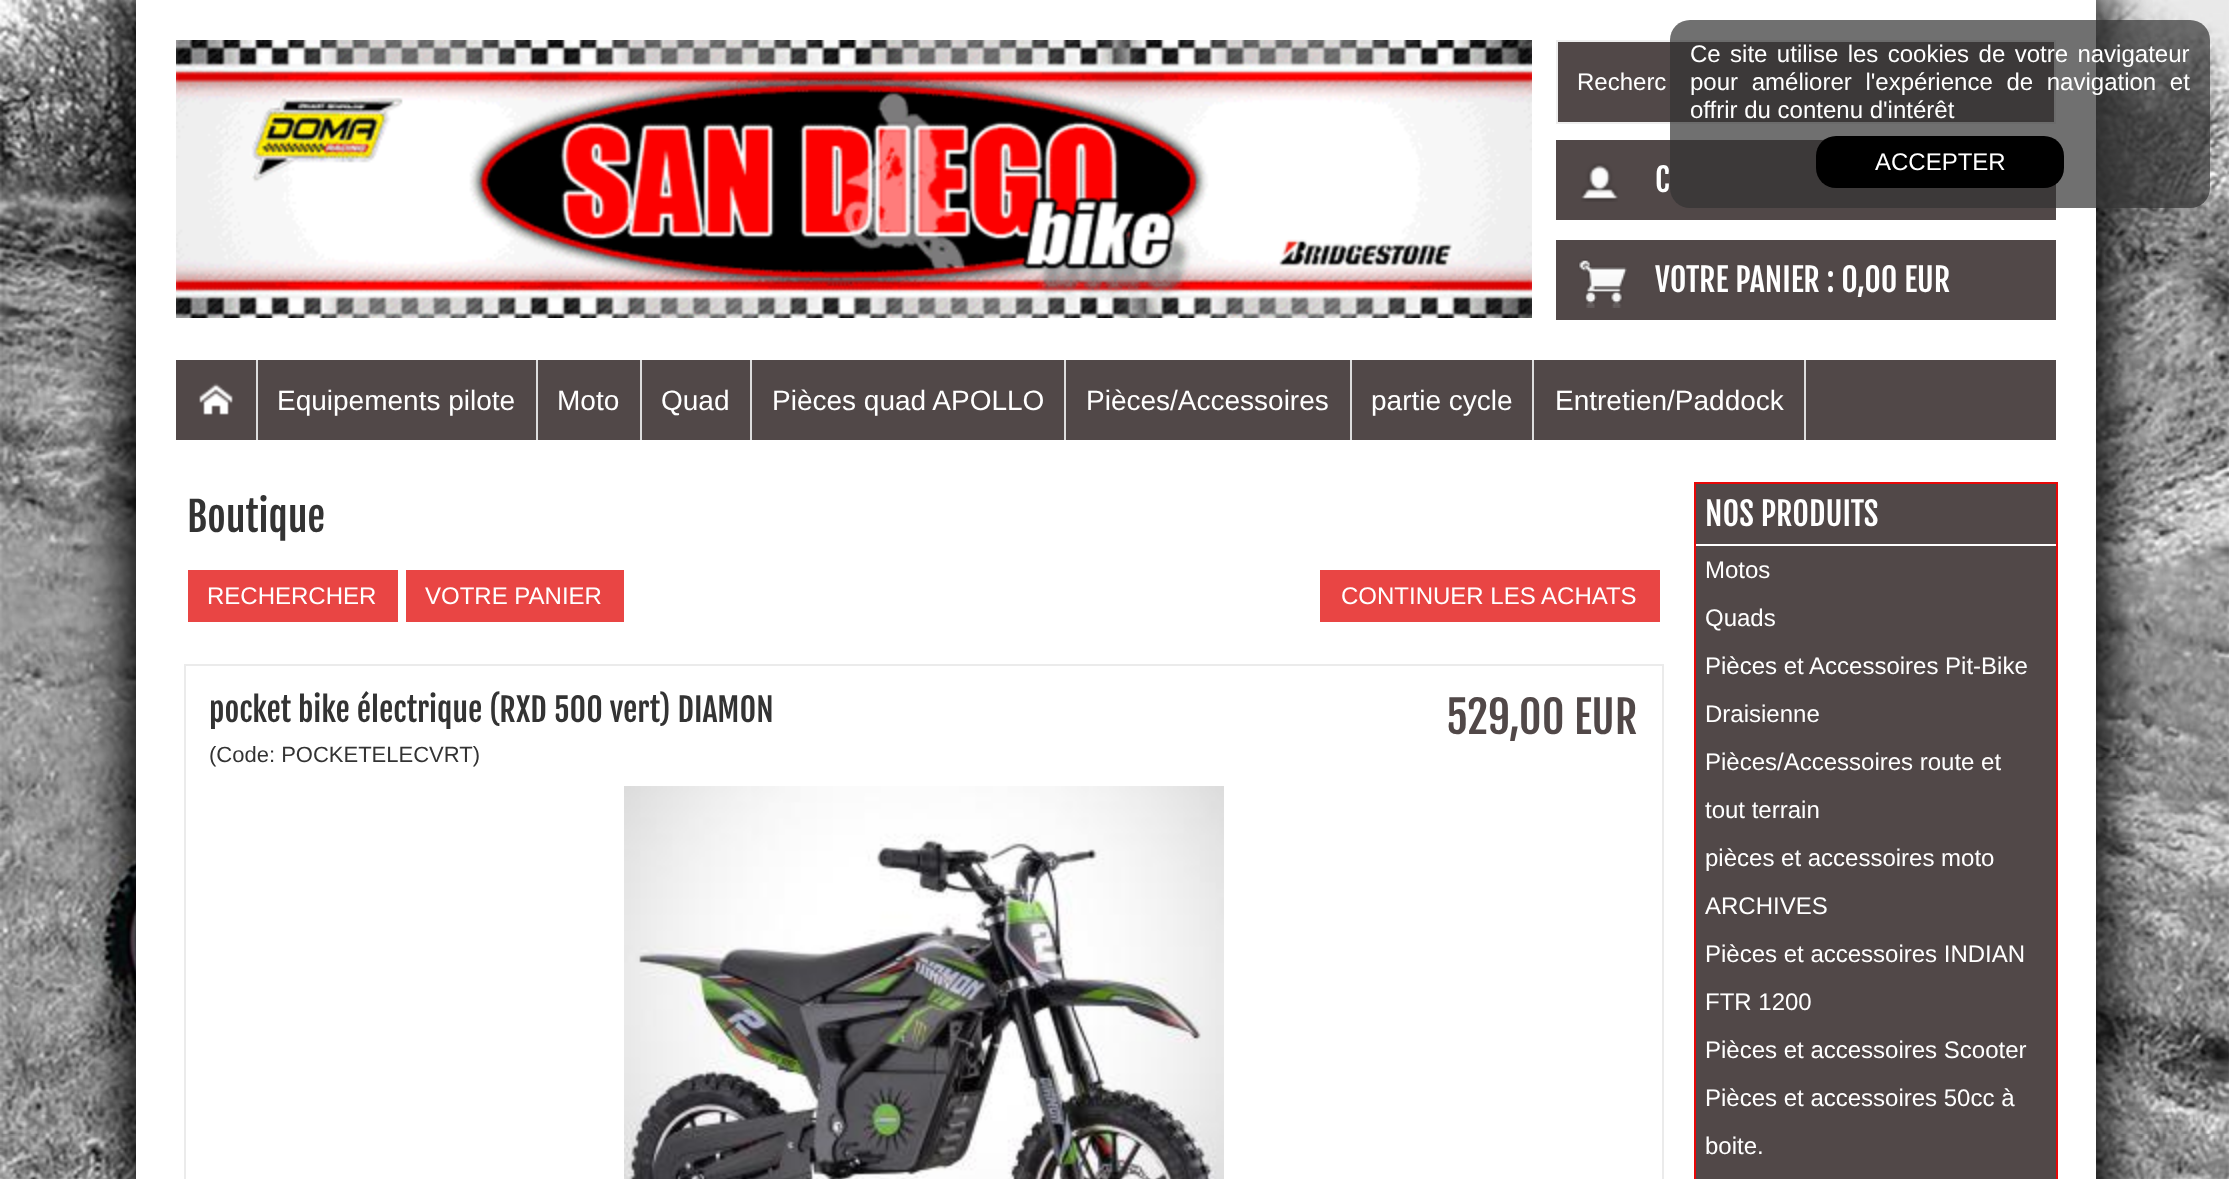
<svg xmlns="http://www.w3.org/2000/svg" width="2229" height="1179">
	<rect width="100%" height="100%" fill="#FFFFFF" />
	<image x="0" y="0" width="2229" height="1179" href="assets/img1.png" />
	<rect x="124" y="-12" width="1984" height="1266" fill="#000000" filter="blur(25px)" />
	<rect x="136" y="0" width="1960" height="1179" fill="#FFFFFF" />
	<rect x="1557" y="41" width="498" height="82" fill="none" stroke="#EEEEEE" stroke-width="2" />
	<rect x="1558" y="42" width="496" height="80" fill="#514848" />
	<rect x="1556" y="140" width="500" height="80" fill="#514848" />
	<rect x="1670" y="20" width="540" height="188" rx="20" fill="#333333" fill-opacity="0.7" />
	<g font-family="Liberation Sans" font-size="24" fill="#FFFFFF">
		<text x="1690" y="62" word-spacing="2.75">Ce site utilise les cookies de votre navigateur</text>
		<text x="1690" y="90" word-spacing="7">pour améliorer l'expérience de navigation et</text>
		<text x="1690" y="118">offrir du contenu d'intérêt</text>
	</g>
	<rect x="1816" y="136" width="248" height="52" rx="20" fill="#000000" />
	<text x="1875" y="170" font-family="Liberation Sans" font-size="24" fill="#FFFFFF">ACCEPTER</text>
	<image x="176" y="40" width="1356" height="278" href="assets/img2.png" />
	<text x="1577" y="90" font-family="Liberation Sans" font-size="24" fill="#FFFFFF">Recherc</text>
	<image x="1581" y="163" width="37" height="39" href="assets/img3.png" />
	<text x="1655" y="192" font-family="Fjalla One" font-size="32" fill="#FFFFFF">C</text>
	<rect x="1556" y="240" width="500" height="80" fill="#514848" />
	<image x="1578" y="259" width="49" height="49" href="assets/img4.png" />
	<text x="1655" y="292" font-family="Fjalla One" font-size="32" fill="#FFFFFF">VOTRE PANIER : 0,00 EUR</text>
	<rect x="176" y="360" width="80" height="80" fill="#514848" />
	<image x="199" y="383" width="34" height="32" href="assets/img5.png" />
	<rect x="258" y="360" width="1798" height="80" fill="#514848" />
	<rect x="256" y="360" width="2" height="80" fill="#DDDDDD" />
	<rect x="536" y="360" width="2" height="80" fill="#DDDDDD" />
	<text x="277" y="410" font-family="Liberation Sans" font-size="28" fill="#FFFFFF">Equipements pilote</text>
	<rect x="640" y="360" width="2" height="80" fill="#DDDDDD" />
	<text x="557" y="410" font-family="Liberation Sans" font-size="28" fill="#FFFFFF">Moto</text>
	<rect x="750" y="360" width="2" height="80" fill="#DDDDDD" />
	<text x="661" y="410" font-family="Liberation Sans" font-size="28" fill="#FFFFFF">Quad</text>
	<rect x="1064" y="360" width="2" height="80" fill="#DDDDDD" />
	<text x="772" y="410" font-family="Liberation Sans" font-size="28" fill="#FFFFFF">Pièces quad APOLLO</text>
	<rect x="1350" y="360" width="2" height="80" fill="#DDDDDD" />
	<text x="1086" y="410" font-family="Liberation Sans" font-size="28" fill="#FFFFFF">Pièces/Accessoires</text>
	<rect x="1532" y="360" width="2" height="80" fill="#DDDDDD" />
	<text x="1371" y="410" font-family="Liberation Sans" font-size="28" fill="#FFFFFF">partie cycle</text>
	<rect x="1804" y="360" width="2" height="80" fill="#DDDDDD" />
	<text x="1555" y="410" font-family="Liberation Sans" font-size="28" fill="#FFFFFF">Entretien/Paddock</text>
	<text x="187" y="532" font-family="Fjalla One" font-size="40" fill="#333333">Boutique</text>
	<rect x="188" y="570" width="210" height="52" fill="#E94544" />
	<text x="207" y="604" font-family="Liberation Sans" font-size="24" fill="#FFFFFF">RECHERCHER</text>
	<rect x="406" y="570" width="218" height="52" fill="#E94544" />
	<text x="425" y="604" font-family="Liberation Sans" font-size="24" fill="#FFFFFF">VOTRE PANIER</text>
	<rect x="1320" y="570" width="340" height="52" fill="#E94544" />
	<text x="1341" y="604" font-family="Liberation Sans" font-size="24" fill="#FFFFFF">CONTINUER LES ACHATS</text>
	<rect x="185" y="665" width="1478" height="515" fill="none" stroke="#EBEBEB" stroke-width="2" />
	<text x="209" y="722" font-family="Fjalla One" font-size="32" fill="#333333">pocket bike électrique (RXD 500 vert) DIAMON</text>
	<text x="209" y="762" font-family="Liberation Sans" font-size="22" fill="#333333">(Code: POCKETELECVRT)</text>
	<text x="1446" y="734" font-family="Fjalla One" font-size="44" fill="#514848">529,00 EUR</text>
	<image x="624" y="786" width="600" height="393" href="assets/img6.png" />
	<rect x="1695" y="483" width="362" height="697" fill="none" stroke="#E70808" stroke-width="2" />
	<rect x="1696" y="484" width="360" height="60" fill="#514848" />
	<text x="1705" y="526" font-family="Fjalla One" font-size="32" fill="#FFFFFF">NOS PRODUITS</text>
	<rect x="1696" y="546" width="360" height="633" fill="#514848" />
	<g font-family="Liberation Sans" font-size="24" fill="#FFFFFF">
		<text x="1705" y="578">Motos</text>
		<text x="1705" y="626">Quads</text>
		<text x="1705" y="674">Pièces et Accessoires Pit-Bike</text>
		<text x="1705" y="722">Draisienne</text>
		<text x="1705" y="770">Pièces/Accessoires route et</text>
		<text x="1705" y="818">tout terrain</text>
		<text x="1705" y="866">pièces et accessoires moto</text>
		<text x="1705" y="914">ARCHIVES</text>
		<text x="1705" y="962">Pièces et accessoires INDIAN</text>
		<text x="1705" y="1010">FTR 1200</text>
		<text x="1705" y="1058">Pièces et accessoires Scooter</text>
		<text x="1705" y="1106">Pièces et accessoires 50cc à</text>
		<text x="1705" y="1154">boite.</text>
	</g>
</svg>
